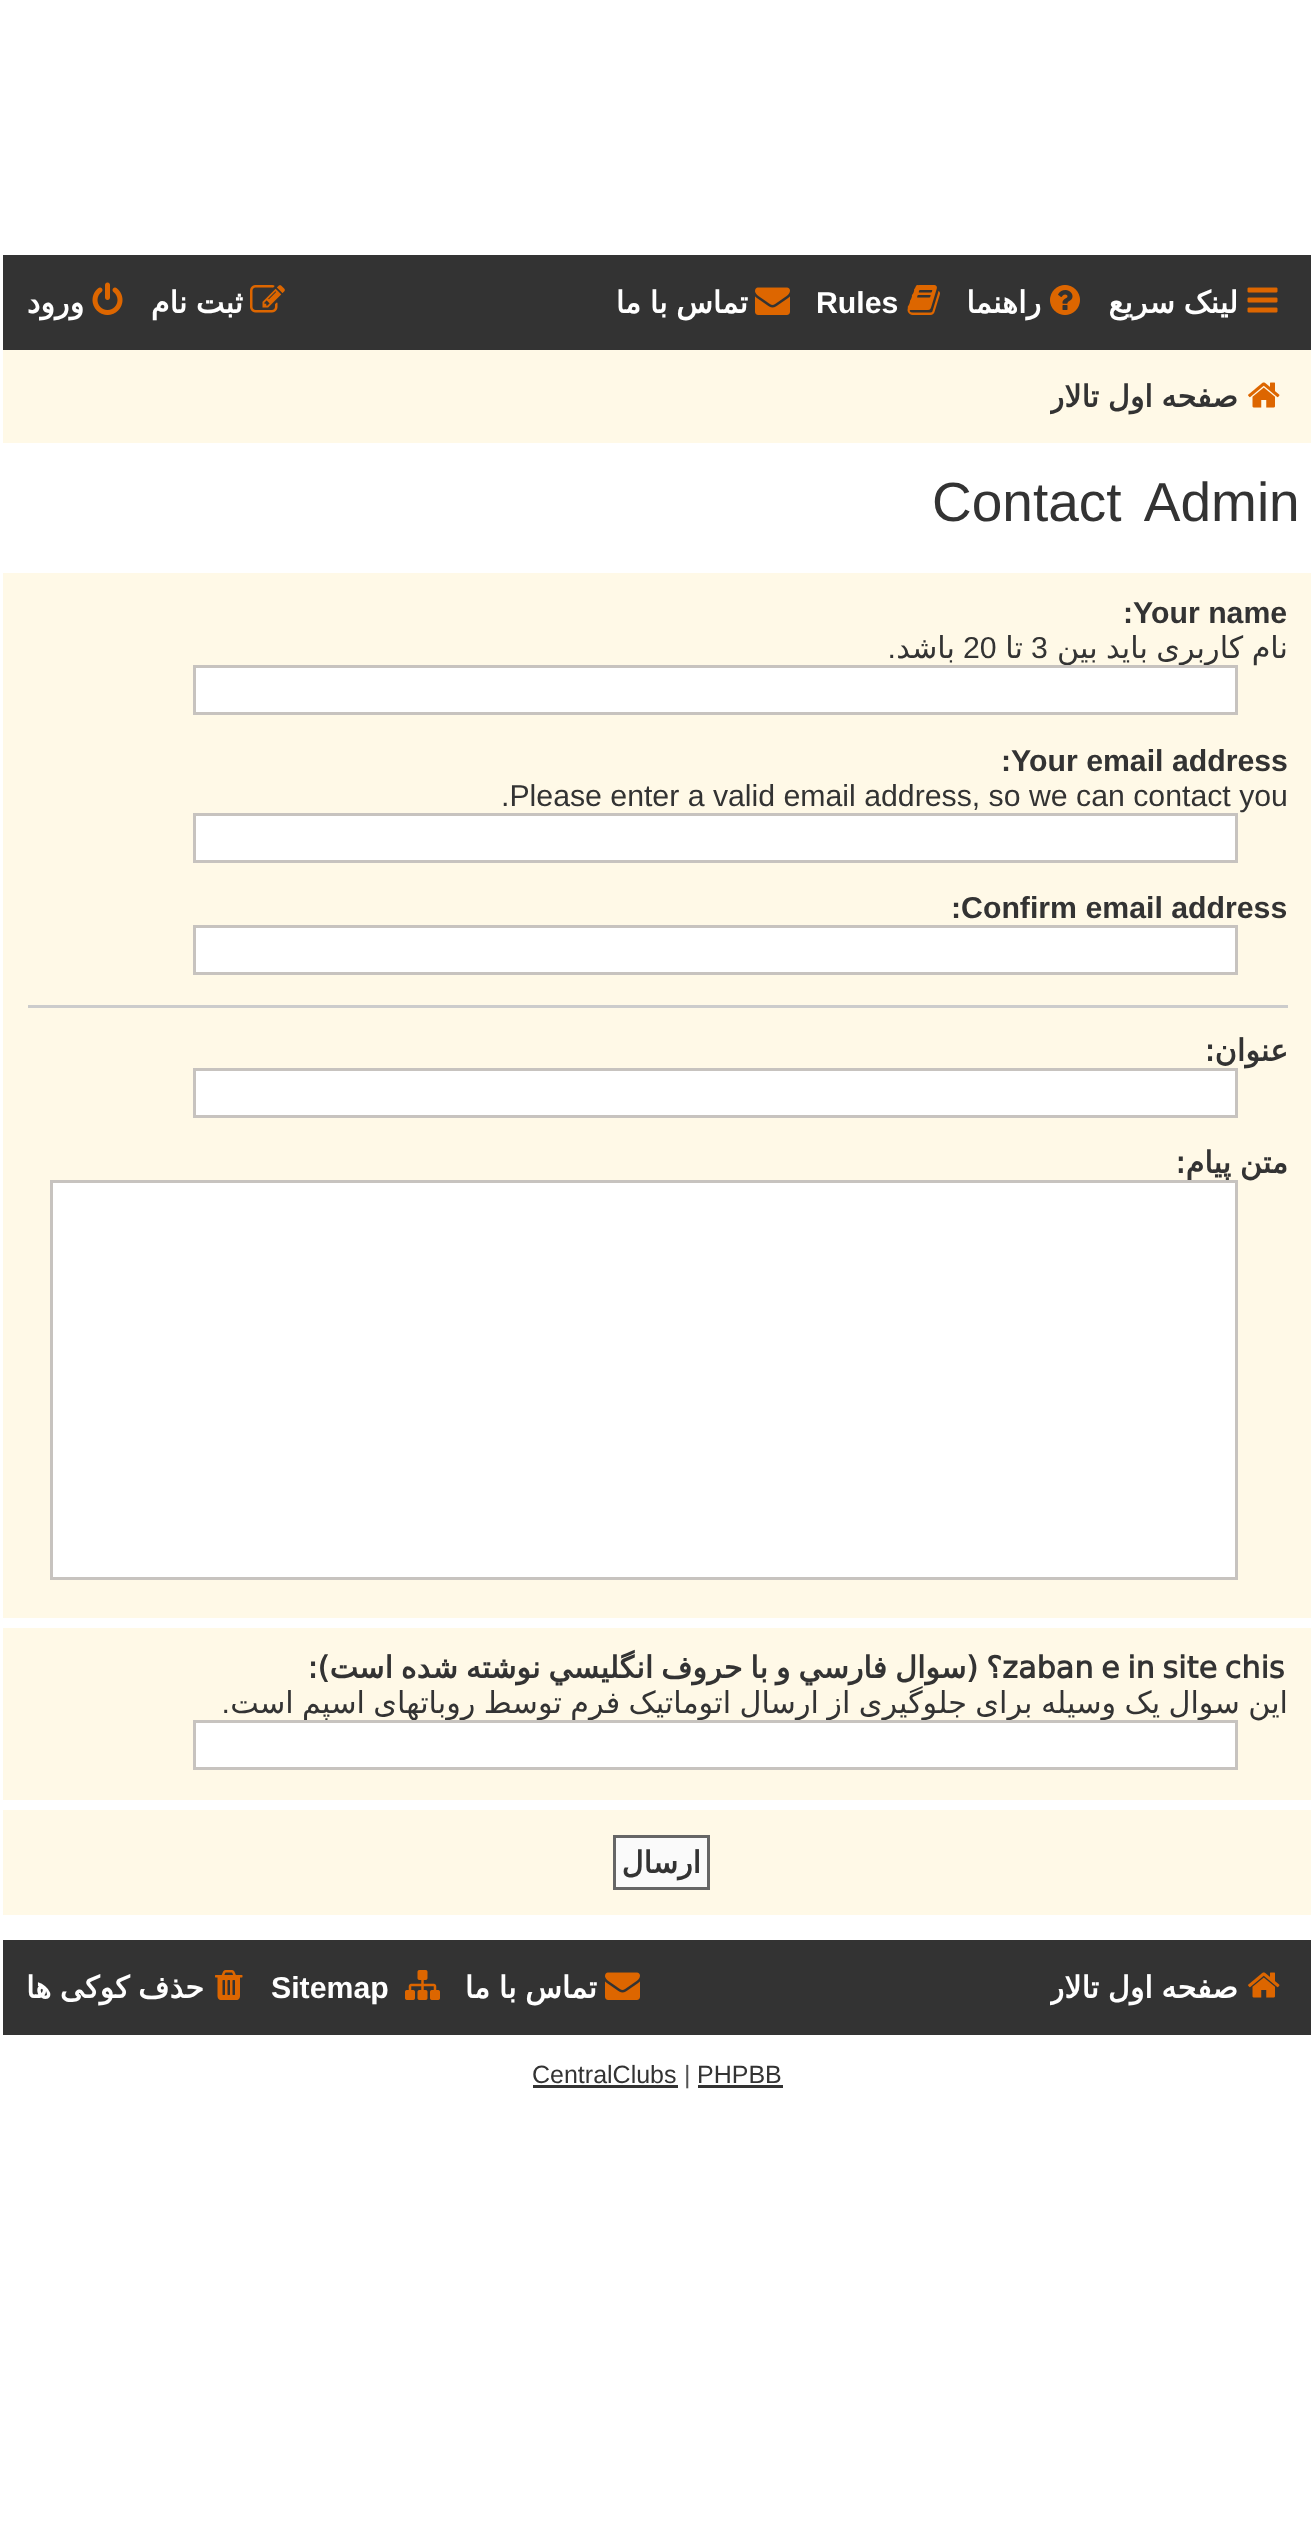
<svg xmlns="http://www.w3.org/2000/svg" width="1311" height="2531">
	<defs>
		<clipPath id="clip1"><rect x="1050" y="365" width="238" height="65" /></clipPath>
		<clipPath id="clip2"><rect x="28" y="585" width="1260" height="148" /></clipPath>
		<clipPath id="clip3"><rect x="28" y="1640" width="1260" height="148" /></clipPath>
		<clipPath id="clip4"><rect x="1050" y="1955" width="238" height="68" /></clipPath>
	</defs>
	<rect width="100%" height="100%" fill="#FFFFFF" />
	<rect x="3" y="255" width="1308" height="95" fill="#333333" />
	<image x="1247" y="287" width="31" height="26" href="assets/img1.png" />
	<text x="1238" y="313" word-spacing="-1" font-family="DejaVu Sans" font-size="30.25" font-weight="700" direction="rtl" fill="#FFFFFF">لینک سریع</text>
	<image x="1050" y="285" width="30" height="30" href="assets/img2.png" />
	<text x="1041" y="313" font-family="DejaVu Sans" font-size="30.25" font-weight="700" direction="rtl" fill="#FFFFFF">راهنما</text>
	<image x="907" y="285" width="33" height="30" href="assets/img3.png" />
	<text x="816" y="313" font-family="Liberation Sans" font-size="30.25" font-weight="700" fill="#FFFFFF">Rules</text>
	<image x="755" y="287" width="35" height="28" href="assets/img4.png" />
	<text x="748" y="313" word-spacing="-1" font-family="DejaVu Sans" font-size="30.25" font-weight="700" direction="rtl" fill="#FFFFFF">تماس با ما</text>
	<image x="250" y="285" width="35" height="28" href="assets/img5.png" />
	<text x="243" y="313" word-spacing="-1" font-family="DejaVu Sans" font-size="30.25" font-weight="700" direction="rtl" fill="#FFFFFF">ثبت نام</text>
	<image x="92" y="282" width="31" height="33" href="assets/img6.png" />
	<text x="84" y="313" font-family="DejaVu Sans" font-size="30.25" font-weight="700" direction="rtl" fill="#FFFFFF">ورود</text>
	<rect x="3" y="350" width="1308" height="93" fill="#FFF9E7" />
	<image x="1248" y="382" width="32" height="26" href="assets/img7.png" />
	<g clip-path="url(#clip1)">
		<text x="1238" y="407" word-spacing="-1" font-family="DejaVu Sans" font-size="30.25" font-weight="700" direction="rtl" fill="#333333">صفحه اول تالار</text>
	</g>
	<text x="932" y="521" word-spacing="10" font-family="Liberation Sans" font-size="55" fill="#333333">Contact Admin</text>
	<rect x="3" y="573" width="1308" height="1045" fill="#FFF9E7" />
	<text x="1123" y="623" font-family="Liberation Sans" font-size="30.25" font-weight="700" fill="#333333">:Your name</text>
	<g clip-path="url(#clip2)">
		<text x="1288" y="658" word-spacing="-1.25" font-family="DejaVu Sans" font-size="30.25" direction="rtl" fill="#333333">نام کاربری باید بین</text>
	</g>
	<text x="1031" y="658" font-family="Liberation Sans" font-size="30.25" fill="#333333">3</text>
	<text x="1023" y="658" font-family="DejaVu Sans" font-size="30.25" direction="rtl" fill="#333333">تا</text>
	<text x="963" y="658" font-family="Liberation Sans" font-size="30.25" fill="#333333">20</text>
	<text x="955" y="658" font-family="DejaVu Sans" font-size="30.25" direction="rtl" fill="#333333">باشد</text>
	<text x="896" y="658" font-family="Liberation Sans" font-size="30.25" direction="rtl" fill="#333333">.</text>
	<rect x="194.5" y="666.5" width="1042" height="47" fill="#FFFFFF" stroke="#C7C3BF" stroke-width="3" />
	<text x="1001" y="771" font-family="Liberation Sans" font-size="30.25" font-weight="700" fill="#333333">:Your email address</text>
	<text x="501" y="806" font-family="Liberation Sans" font-size="30.25" fill="#333333">.Please enter a valid email address, so we can contact you</text>
	<rect x="194.5" y="814.5" width="1042" height="47" fill="#FFFFFF" stroke="#C7C3BF" stroke-width="3" />
	<text x="951" y="918" font-family="Liberation Sans" font-size="30.25" font-weight="700" fill="#333333">:Confirm email address</text>
	<rect x="194.5" y="926.5" width="1042" height="47" fill="#FFFFFF" stroke="#C7C3BF" stroke-width="3" />
	<rect x="28" y="1005" width="1260" height="3" fill="#CCCCCC" />
	<text x="1288" y="1061" font-family="DejaVu Sans" font-size="30.25" font-weight="700" direction="rtl" fill="#333333">عنوان:</text>
	<rect x="194.5" y="1069.5" width="1042" height="47" fill="#FFFFFF" stroke="#C7C3BF" stroke-width="3" />
	<text x="1288" y="1173" word-spacing="-1" font-family="DejaVu Sans" font-size="30.25" font-weight="700" direction="rtl" fill="#333333">متن پیام:</text>
	<rect x="51.5" y="1181.5" width="1185" height="397" fill="#FFFFFF" stroke="#C7C3BF" stroke-width="3" />
	<rect x="3" y="1628" width="1308" height="172" fill="#FFF9E7" />
	<text x="1002" y="1678" word-spacing="-1.75" font-family="DejaVu Sans" font-size="30.25" font-weight="700" direction="rtl" fill="#333333">؟ (سوال فارسي و با حروف انگليسي نوشته شده است):</text>
	<text x="1002" y="1678" word-spacing="-2" font-family="DejaVu Sans" font-size="30.25" font-weight="700" fill="#333333">zaban e in site chis</text>
	<g clip-path="url(#clip3)">
		<text x="1288" y="1713" word-spacing="-1.25" font-family="DejaVu Sans" font-size="30.25" direction="rtl" fill="#333333">این سوال یک وسیله برای جلوگیری از ارسال اتوماتیک فرم توسط روباتهای اسپم است</text>
	</g>
	<text x="230" y="1713" font-family="Liberation Sans" font-size="30.25" direction="rtl" fill="#333333">.</text>
	<rect x="194.5" y="1721.5" width="1042" height="47" fill="#FFFFFF" stroke="#C7C3BF" stroke-width="3" />
	<rect x="3" y="1810" width="1308" height="105" fill="#FFF9E7" />
	<rect x="614.5" y="1836.5" width="94" height="52" fill="#FAFAFA" stroke="#666666" stroke-width="3" />
	<text x="701" y="1873" font-family="DejaVu Sans" font-size="30.25" font-weight="700" direction="rtl" fill="#333333">ارسال</text>
	<rect x="3" y="1940" width="1308" height="95" fill="#333333" />
	<image x="1248" y="1972" width="32" height="26" href="assets/img8.png" />
	<g clip-path="url(#clip4)">
		<text x="1238" y="1998" word-spacing="-1" font-family="DejaVu Sans" font-size="30.25" font-weight="700" direction="rtl" fill="#FFFFFF">صفحه اول تالار</text>
	</g>
	<image x="605" y="1972" width="35" height="28" href="assets/img4.png" />
	<text x="597" y="1998" word-spacing="-1" font-family="DejaVu Sans" font-size="30.25" font-weight="700" direction="rtl" fill="#FFFFFF">تماس با ما</text>
	<image x="405" y="1970" width="35" height="30" href="assets/img9.png" />
	<text x="271" y="1998" font-family="Liberation Sans" font-size="30.25" font-weight="700" fill="#FFFFFF">Sitemap</text>
	<image x="215" y="1970" width="28" height="30" href="assets/img10.png" />
	<text x="204" y="1998" word-spacing="-1" font-family="DejaVu Sans" font-size="30.25" font-weight="700" direction="rtl" fill="#FFFFFF">حذف کوکی ها</text>
	<text x="697" y="2083" font-family="Liberation Sans" font-size="25" fill="#333333">PHPBB</text>
	<rect x="698" y="2085" width="85" height="3" fill="#333333" />
	<text x="684" y="2083" font-family="Liberation Sans" font-size="25" fill="#555555">|</text>
	<text x="532" y="2083" font-family="Liberation Sans" font-size="25" fill="#333333">CentralClubs</text>
	<rect x="533" y="2085" width="145" height="3" fill="#333333" />
</svg>
